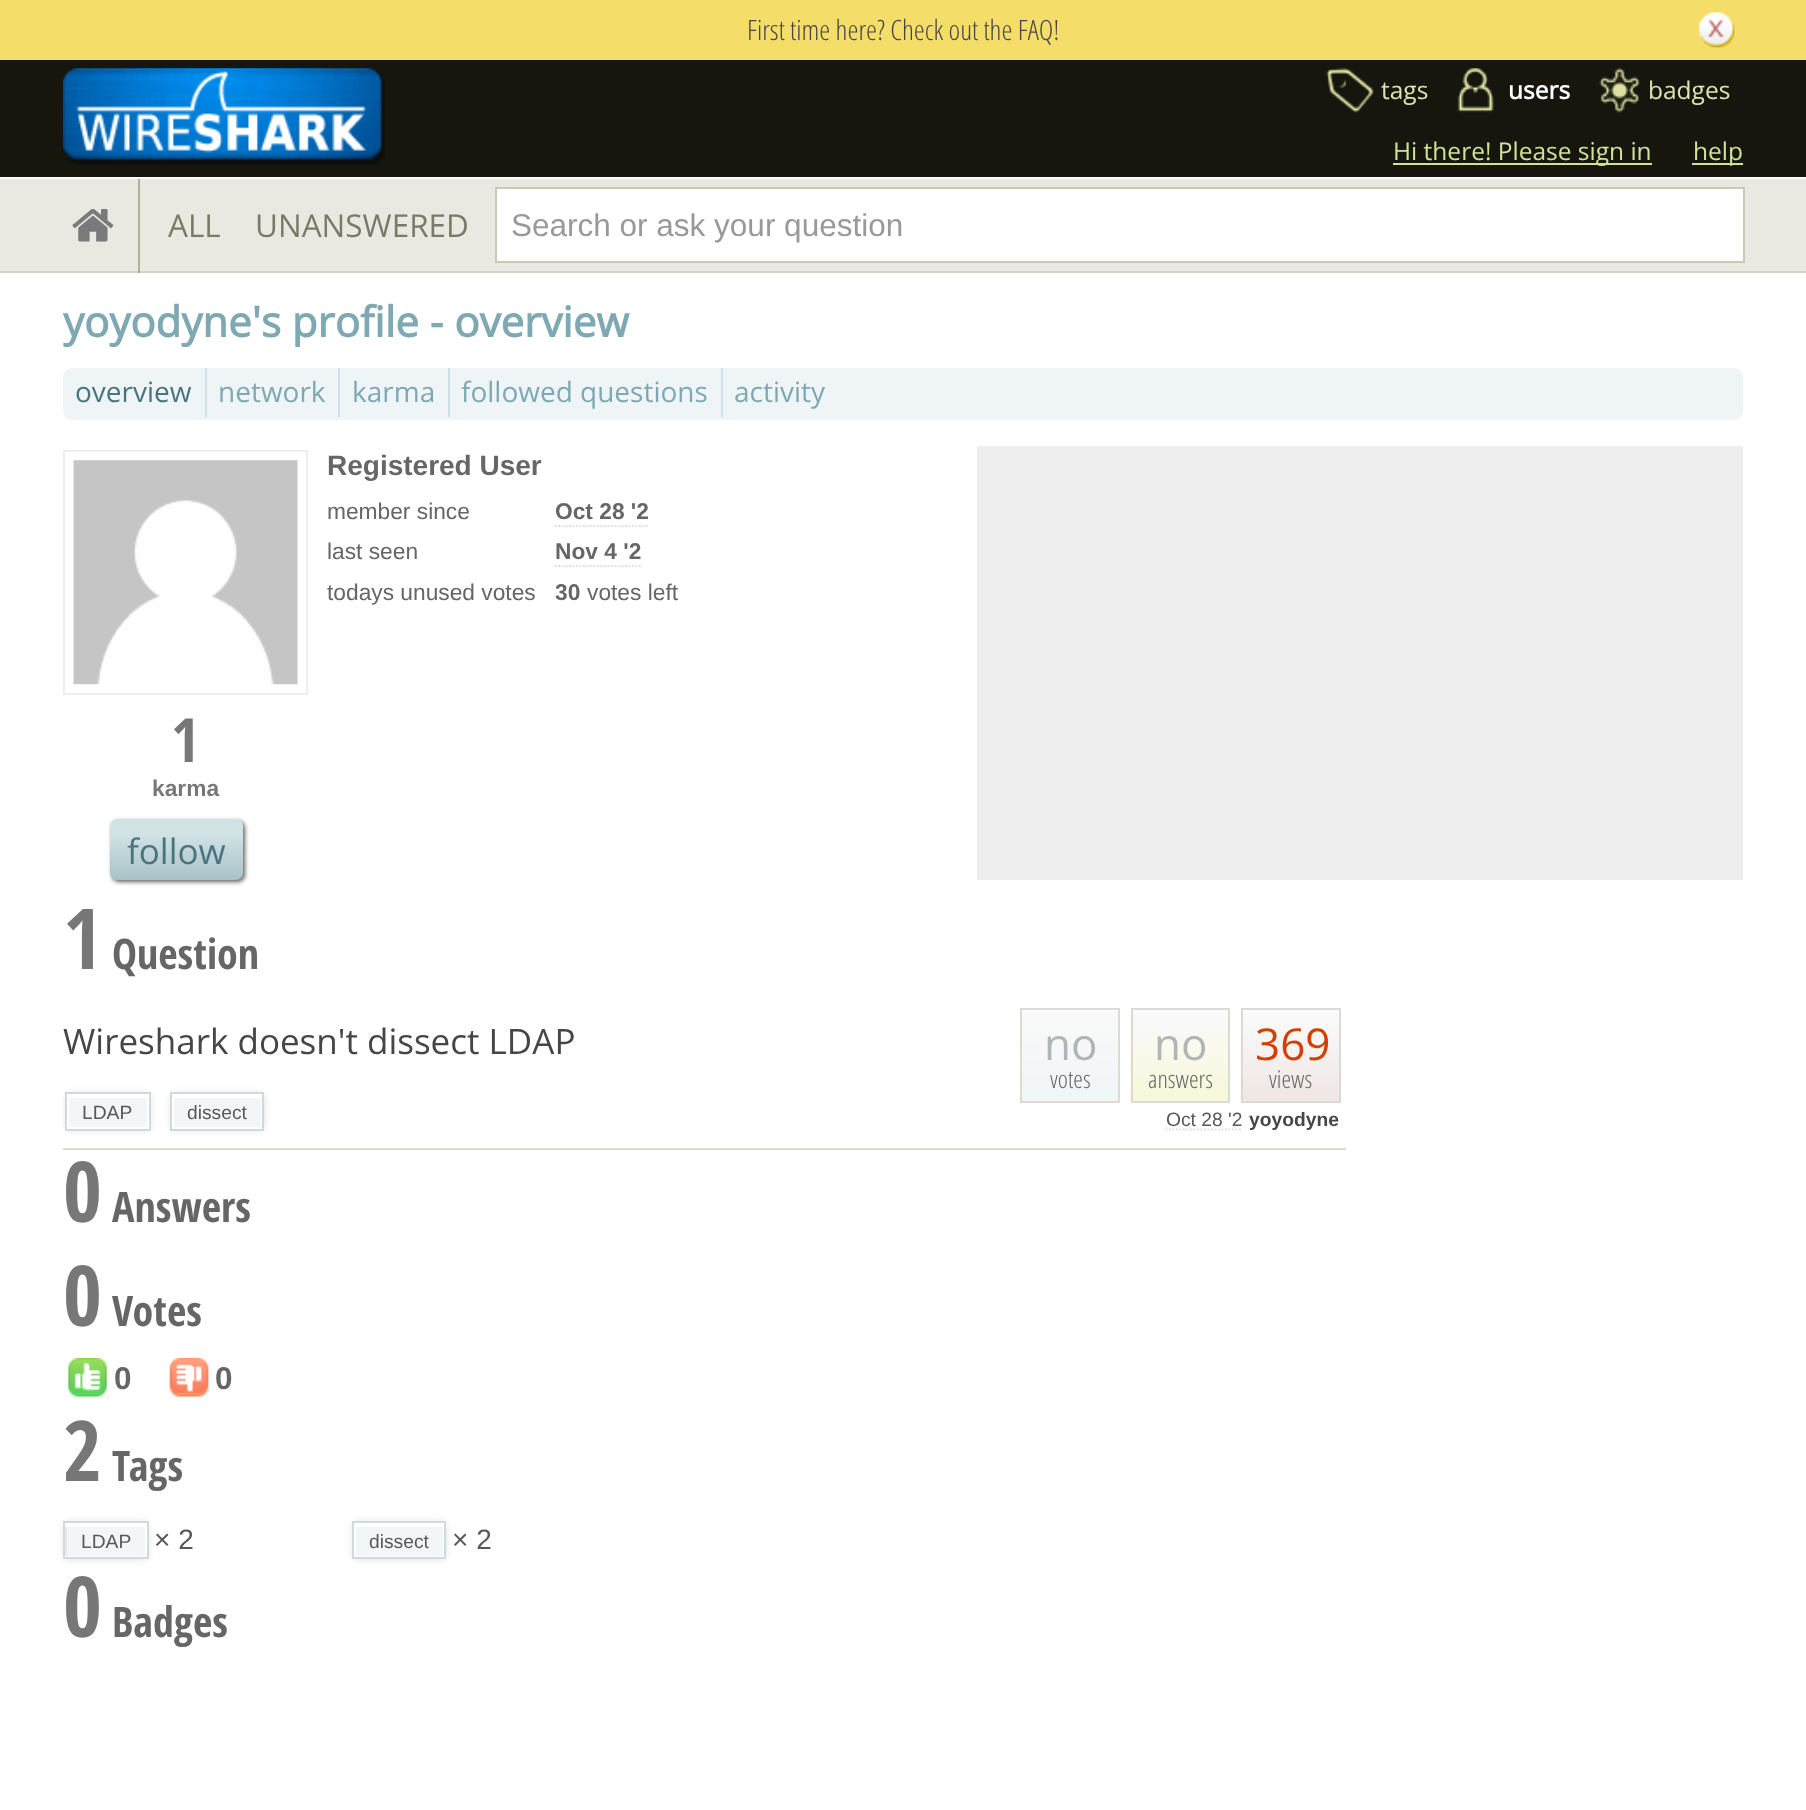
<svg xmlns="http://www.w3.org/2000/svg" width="1806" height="1810">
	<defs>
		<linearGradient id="g1" gradientUnits="userSpaceOnUse" x1="177" y1="819" x2="177" y2="880"><stop offset="0" stop-color="#D1E2E5" /><stop offset="0.25" stop-color="#D1E2E5" /><stop offset="1" stop-color="#A9C2C7" /></linearGradient>
		<clipPath id="clip1"><rect x="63" y="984" width="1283" height="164" /></clipPath>
	</defs>
	<rect width="100%" height="100%" fill="#FFFFFF" />
	<rect x="0" y="0" width="1806" height="60" fill="#F5DD69" />
	<text x="747" y="40" font-family="Open Sans Condensed" font-size="28" font-weight="300" fill="#464646">First time here? Check out the FAQ!</text>
	<image x="1699" y="12" width="36" height="36" href="assets/img1.png" />
	<rect x="0" y="60" width="1806" height="117" fill="#16160F" />
	<image x="63" y="68" width="322" height="97" href="assets/img2.png" />
	<image x="1326" y="68" width="48" height="45" href="assets/img3.png" />
	<text x="1381" y="99" font-family="Open Sans" font-size="24.5" fill="#E2E2AE">tags</text>
	<image x="1457" y="68" width="37" height="45" href="assets/img4.png" />
	<text x="1508" y="99" font-family="Open Sans" font-size="24.5" font-weight="700" fill="#FFFFFF">users</text>
	<image x="1599" y="68" width="41" height="45" href="assets/img5.png" />
	<text x="1648" y="99" font-family="Open Sans" font-size="24.5" fill="#E2E2AE">badges</text>
	<rect x="1393" y="163" width="259" height="2" fill="#D0E296" />
	<text x="1393" y="160" font-family="Open Sans" font-size="24.5" fill="#D0E296">Hi there! Please sign in</text>
	<rect x="1692" y="163" width="51" height="2" fill="#D0E296" />
	<text x="1693" y="160" font-family="Open Sans" font-size="24.5" fill="#D0E296">help</text>
	<rect x="0" y="179" width="1806" height="92" fill="#E9E9E1" />
	<rect x="0" y="177" width="1806" height="2" fill="#FCFCFC" />
	<rect x="0" y="271" width="1806" height="2" fill="#D3D3C2" />
	<rect x="138" y="179" width="2" height="94" fill="#AFAF9E" />
	<image x="72" y="209" width="42" height="33" href="assets/img6.png" />
	<g font-family="Open Sans" font-size="31.5" fill="#7A7A6B">
		<text x="168" y="237">ALL</text>
		<text x="255" y="237">UNANSWERED</text>
	</g>
	<rect x="496" y="188" width="1248" height="74" fill="#FFFFFF" stroke="#C9C9B5" stroke-width="2" />
	<text x="511" y="236" font-family="Liberation Sans" font-size="31.5" fill="#999999">Search or ask your question</text>
	<text x="63" y="337" font-family="Open Sans" font-size="42" font-weight="700" fill="#7EA9B3">yoyodyne's profile - overview</text>
	<rect x="63" y="368" width="1680" height="52" rx="9" fill="#EFF5F6" />
	<text x="75" y="402" font-family="Open Sans" font-size="28" fill="#4A757F">overview</text>
	<rect x="205" y="368" width="2" height="49" fill="#D0E1E4" />
	<text x="218" y="402" font-family="Open Sans" font-size="28" fill="#7EA9B3">network</text>
	<rect x="338" y="368" width="2" height="49" fill="#D0E1E4" />
	<text x="352" y="402" font-family="Open Sans" font-size="28" fill="#7EA9B3">karma</text>
	<rect x="448" y="368" width="2" height="49" fill="#D0E1E4" />
	<text x="461" y="402" font-family="Open Sans" font-size="28" fill="#7EA9B3">followed questions</text>
	<rect x="721" y="368" width="2" height="49" fill="#D0E1E4" />
	<text x="734" y="402" font-family="Open Sans" font-size="28" fill="#7EA9B3">activity</text>
	<text x="327" y="475" font-family="Liberation Sans" font-size="28" font-weight="700" fill="#666666">Registered User</text>
	<text x="327" y="519" font-family="Liberation Sans" font-size="22.75" fill="#666666">member since</text>
	<text x="555" y="519" font-family="Liberation Sans" font-size="22.75" font-weight="700" fill="#666666">Oct 28 '2</text>
	<path d="M555 526H649" fill="none" stroke="#DDDDDD" stroke-width="1.8" stroke-dasharray="1.75 1.75" />
	<text x="327" y="559" font-family="Liberation Sans" font-size="22.75" fill="#666666">last seen</text>
	<text x="555" y="559" font-family="Liberation Sans" font-size="22.75" font-weight="700" fill="#666666">Nov 4 '2</text>
	<path d="M555 566H642" fill="none" stroke="#DDDDDD" stroke-width="1.8" stroke-dasharray="1.75 1.75" />
	<text x="327" y="600" font-family="Liberation Sans" font-size="22.75" fill="#666666">todays unused votes</text>
	<text x="555" y="600" font-family="Liberation Sans" font-size="22.75" font-weight="700" fill="#666666">30</text>
	<text x="587" y="600" font-family="Liberation Sans" font-size="22.75" fill="#666666">votes left</text>
	<rect x="977" y="446" width="766" height="434" fill="#EEEEEE" />
	<rect x="64" y="451" width="243" height="243" fill="none" stroke="#EEEEEE" stroke-width="2" />
	<image x="73" y="460" width="225" height="225" href="assets/img7.png" />
	<text x="171" y="762" font-family="Open Sans Condensed" font-size="61" font-weight="700" fill="#777777">1</text>
	<text x="152" y="796" font-family="Liberation Sans" font-size="22.75" font-weight="700" fill="#777777">karma</text>
	<rect x="112" y="821" width="133" height="61" rx="7" fill="#636363" filter="blur(2px)" />
	<rect x="110" y="819" width="133" height="61" rx="7" fill="url(#g1)" />
	<text x="127" y="864" font-family="Open Sans" font-size="35" fill="#4A757F">follow</text>
	<text x="63" y="969" font-family="Open Sans Condensed" font-size="84" font-weight="700" fill="#777777">1</text>
	<text x="112" y="969" font-family="Open Sans Condensed" font-size="42" font-weight="700" fill="#666666">Question</text>
	<rect x="63" y="1148" width="1283" height="2" fill="#DDDBCE" />
	<text x="63" y="1054" font-family="Open Sans" font-size="35" fill="#464646">Wireshark doesn't dissect LDAP</text>
	<image x="1022" y="1012" width="96" height="89" href="assets/img8.png" />
	<rect x="1021" y="1009" width="98" height="93" fill="none" stroke="#DBDBD4" stroke-width="2" />
	<text x="1044" y="1060" font-family="Open Sans" font-size="44" fill="#B1B5B6">no</text>
	<text x="1050" y="1088" font-family="Open Sans Condensed" font-size="24.5" font-weight="300" fill="#666666">votes</text>
	<image x="1130" y="1013" width="101" height="88" href="assets/img9.png" />
	<rect x="1132" y="1009" width="97" height="93" fill="none" stroke="#DBDBD4" stroke-width="2" />
	<text x="1154" y="1060" font-family="Open Sans" font-size="44" fill="#B1B5B6">no</text>
	<text x="1148" y="1088" font-family="Open Sans Condensed" font-size="24.5" font-weight="300" fill="#666666">answers</text>
	<image x="1240" y="1013" width="99" height="88" href="assets/img10.png" />
	<rect x="1242" y="1009" width="98" height="93" fill="none" stroke="#DBDBD4" stroke-width="2" />
	<text x="1255" y="1060" font-family="Open Sans" font-size="44" fill="#D33F00">369</text>
	<text x="1269" y="1088" font-family="Open Sans Condensed" font-size="24.5" font-weight="300" fill="#666666">views</text>
	<text x="1166" y="1126" font-family="Liberation Sans" font-size="19.25" fill="#585858">Oct 28 '2</text>
	<path d="M1165.5 1129.5H1242.5" fill="none" stroke="#DDDDDD" stroke-width="1.8" stroke-dasharray="1.75 1.75" />
	<text x="1249" y="1126" font-family="Liberation Sans" font-size="19.25" font-weight="700" fill="#464646">yoyodyne</text>
	<g clip-path="url(#clip1)">
		<rect x="67" y="1094" width="82" height="35" fill="#D3D6D7" filter="blur(4.5px)" />
	</g>
	<rect x="69" y="1098" width="78" height="29" fill="#F3F6F6" />
	<rect x="67" y="1094" width="82" height="4" fill="#FFFFFF" />
	<rect x="147" y="1094" width="2" height="35" fill="#FFFFFF" />
	<rect x="67" y="1127" width="82" height="2" fill="#FFFFFF" />
	<rect x="67" y="1094" width="2" height="35" fill="#FFFFFF" />
	<rect x="66" y="1093" width="84" height="37" fill="none" stroke="#CFDBDB" stroke-width="2" />
	<text x="82" y="1119" font-family="Liberation Sans" font-size="19.25" fill="#585858">LDAP</text>
	<rect x="172" y="1094" width="91" height="35" fill="#D3D6D7" filter="blur(4.5px)" />
	<rect x="174" y="1098" width="87" height="29" fill="#F3F6F6" />
	<rect x="172" y="1094" width="91" height="4" fill="#FFFFFF" />
	<rect x="261" y="1094" width="1" height="35" fill="#FFFFFF" />
	<rect x="172" y="1127" width="91" height="2" fill="#FFFFFF" />
	<rect x="172" y="1094" width="2" height="35" fill="#FFFFFF" />
	<rect x="171" y="1093" width="92" height="37" fill="none" stroke="#CFDBDB" stroke-width="2" />
	<text x="187" y="1119" font-family="Liberation Sans" font-size="19.25" fill="#585858">dissect</text>
	<text x="63" y="1222" font-family="Open Sans Condensed" font-size="84" font-weight="700" fill="#777777">0</text>
	<text x="112" y="1222" font-family="Open Sans Condensed" font-size="42" font-weight="700" fill="#666666">Answers</text>
	<text x="63" y="1326" font-family="Open Sans Condensed" font-size="84" font-weight="700" fill="#777777">0</text>
	<text x="112" y="1326" font-family="Open Sans Condensed" font-size="42" font-weight="700" fill="#666666">Votes</text>
	<image x="67" y="1358" width="41" height="39" href="assets/img11.png" />
	<text x="114" y="1389" font-family="Liberation Sans" font-size="31.5" font-weight="700" fill="#666666">0</text>
	<image x="169" y="1358" width="40" height="39" href="assets/img12.png" />
	<text x="215" y="1389" font-family="Liberation Sans" font-size="31.5" font-weight="700" fill="#666666">0</text>
	<text x="63" y="1481" font-family="Open Sans Condensed" font-size="84" font-weight="700" fill="#777777">2</text>
	<text x="112" y="1481" font-family="Open Sans Condensed" font-size="42" font-weight="700" fill="#666666">Tags</text>
	<rect x="65" y="1523" width="82" height="35" fill="#D3D6D7" filter="blur(4.5px)" />
	<rect x="67" y="1527" width="78" height="29" fill="#F3F6F6" />
	<rect x="65" y="1523" width="82" height="4" fill="#FFFFFF" />
	<rect x="145" y="1523" width="2" height="35" fill="#FFFFFF" />
	<rect x="65" y="1556" width="82" height="1" fill="#FFFFFF" />
	<rect x="64" y="1522" width="84" height="36" fill="none" stroke="#CFDBDB" stroke-width="2" />
	<text x="81" y="1548" font-family="Liberation Sans" font-size="19.25" fill="#585858">LDAP</text>
	<text x="154" y="1549" font-family="Liberation Sans" font-size="28" fill="#585858">× 2</text>
	<rect x="354" y="1523" width="91" height="35" fill="#D3D6D7" filter="blur(4.5px)" />
	<rect x="356" y="1527" width="87" height="29" fill="#F3F6F6" />
	<rect x="354" y="1523" width="91" height="4" fill="#FFFFFF" />
	<rect x="443" y="1523" width="1" height="35" fill="#FFFFFF" />
	<rect x="354" y="1556" width="91" height="1" fill="#FFFFFF" />
	<rect x="354" y="1523" width="2" height="35" fill="#FFFFFF" />
	<rect x="353" y="1522" width="92" height="36" fill="none" stroke="#CFDBDB" stroke-width="2" />
	<text x="369" y="1548" font-family="Liberation Sans" font-size="19.25" fill="#585858">dissect</text>
	<text x="452" y="1549" font-family="Liberation Sans" font-size="28" fill="#585858">× 2</text>
	<text x="63" y="1637" font-family="Open Sans Condensed" font-size="84" font-weight="700" fill="#777777">0</text>
	<text x="112" y="1637" font-family="Open Sans Condensed" font-size="42" font-weight="700" fill="#666666">Badges</text>
</svg>
